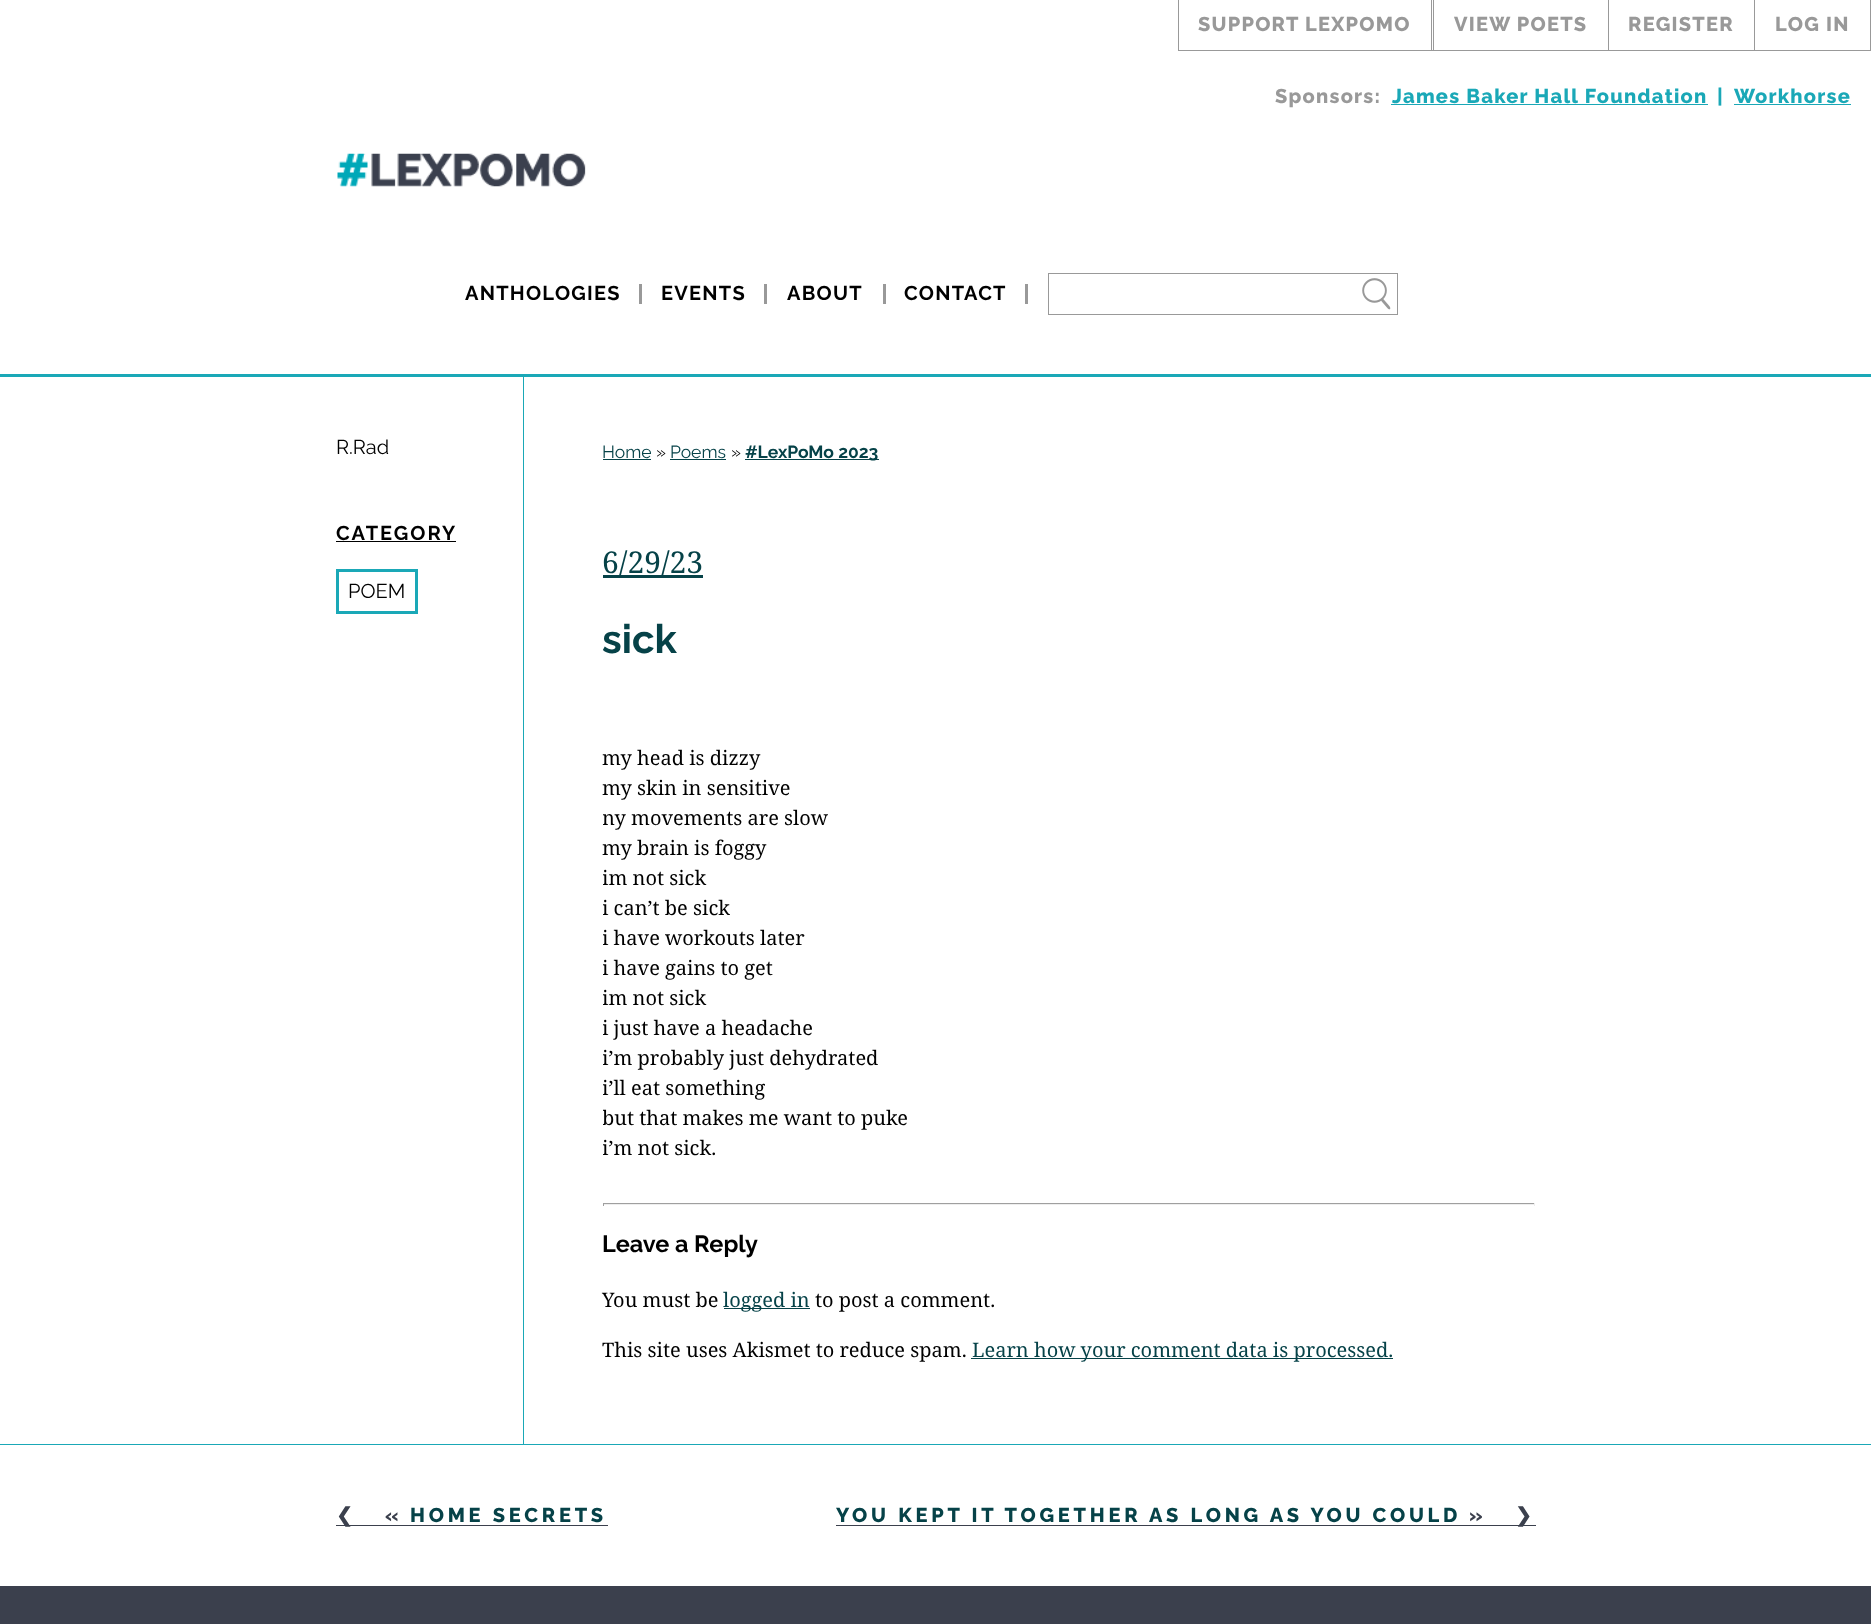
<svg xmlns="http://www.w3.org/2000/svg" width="1871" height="1624">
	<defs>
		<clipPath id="clip1"><rect x="603" y="743" width="875" height="420" /></clipPath>
	</defs>
	<rect width="100%" height="100%" fill="#FFFFFF" />
	<rect x="1431" y="0" width="1" height="51" fill="#999999" />
	<rect x="1178" y="50" width="255" height="1" fill="#999999" />
	<rect x="1178" y="0" width="1" height="51" fill="#999999" />
	<text x="1198" y="31" font-family="Raleway" font-size="20" font-weight="800" letter-spacing="1.25" fill="#999999">SUPPORT LEXPOMO</text>
	<rect x="1433" y="50" width="321" height="1" fill="#999999" />
	<rect x="1433" y="0" width="1" height="51" fill="#999999" />
	<text x="1454" y="31" font-family="Raleway" font-size="20" font-weight="800" letter-spacing="1.25" fill="#999999">VIEW POETS</text>
	<rect x="1608" y="0" width="1" height="51" fill="#999999" />
	<text x="1628" y="31" font-family="Raleway" font-size="20" font-weight="800" letter-spacing="1.25" fill="#999999">REGISTER</text>
	<rect x="1870" y="0" width="1" height="51" fill="#999999" />
	<rect x="1754" y="50" width="117" height="1" fill="#999999" />
	<rect x="1754" y="0" width="1" height="51" fill="#999999" />
	<g font-family="Raleway" font-size="20" font-weight="800" letter-spacing="1.25" fill="#999999">
		<text x="1775" y="31">LOG IN</text>
		<text x="1275" y="103">Sponsors:</text>
	</g>
	<text x="1392" y="103" font-family="Raleway" font-size="20" font-weight="800" letter-spacing="1.25" fill="#1AA8B7">James Baker Hall Foundation</text>
	<rect x="1391" y="104" width="317" height="1" fill="#1AA8B7" />
	<g font-family="Raleway" font-size="20" font-weight="800" letter-spacing="1.25" fill="#1AA8B7">
		<text x="1717" y="103">|</text>
		<text x="1734" y="103">Workhorse</text>
	</g>
	<rect x="1734" y="104" width="117" height="1" fill="#1AA8B7" />
	<image x="337" y="153" width="249" height="34" href="assets/img1.png" />
	<text x="465" y="300" font-family="Raleway" font-size="20" font-weight="700" letter-spacing="1.25" fill="#000000">ANTHOLOGIES</text>
	<rect x="639" y="284" width="3" height="20" fill="#999999" />
	<text x="661" y="300" font-family="Raleway" font-size="20" font-weight="700" letter-spacing="1.25" fill="#000000">EVENTS</text>
	<rect x="764" y="284" width="3" height="20" fill="#999999" />
	<text x="787" y="300" font-family="Raleway" font-size="20" font-weight="700" letter-spacing="1.25" fill="#000000">ABOUT</text>
	<rect x="883" y="284" width="3" height="20" fill="#999999" />
	<text x="904" y="300" font-family="Raleway" font-size="20" font-weight="700" letter-spacing="1.25" fill="#000000">CONTACT</text>
	<rect x="1025" y="284" width="3" height="20" fill="#999999" />
	<rect x="1048.5" y="273.5" width="349" height="41" fill="none" stroke="#999999" />
	<image x="1362" y="278" width="29" height="32" href="assets/img2.png" />
	<rect x="0" y="374" width="1871" height="3" fill="#1AA8B7" />
	<rect x="0" y="1444" width="1871" height="1" fill="#1AA8B7" />
	<rect x="523" y="376" width="1" height="1068" fill="#1AA8B7" />
	<text x="336" y="454" font-family="Raleway" font-size="20" fill="#000000">R.Rad</text>
	<text x="336" y="540" font-family="Raleway" font-size="20" font-weight="700" letter-spacing="2" fill="#000000">CATEGORY</text>
	<rect x="336" y="541" width="120" height="1" fill="#000000" />
	<rect x="337.5" y="570.5" width="79" height="42" fill="none" stroke="#1AA8B7" stroke-width="3" />
	<text x="348" y="598" font-family="Raleway" font-size="20" fill="#000000">POEM</text>
	<text x="602" y="458" font-family="Raleway" font-size="17.5" fill="#064248">Home</text>
	<rect x="603" y="459" width="48" height="1" fill="#064248" />
	<text x="656" y="458" font-family="Raleway" font-size="17.5" fill="#000000">»</text>
	<text x="670" y="458" font-family="Raleway" font-size="17.5" fill="#064248">Poems</text>
	<rect x="670" y="459" width="56" height="1" fill="#064248" />
	<text x="731" y="458" font-family="Raleway" font-size="17.5" fill="#000000">»</text>
	<rect x="745" y="459" width="134" height="1" fill="#064248" />
	<text x="745" y="458" font-family="Raleway" font-size="17.5" font-weight="700" fill="#064248">#LexPoMo 2023</text>
	<rect x="603" y="575" width="100" height="3" fill="#064248" />
	<text x="602" y="573" font-family="Noto Serif" font-size="30" fill="#064248">6/29/23</text>
	<text x="602" y="653" font-family="Raleway" font-size="40" font-weight="700" fill="#064248">sick</text>
	<g font-family="Noto Serif" font-size="20" fill="#000000">
		<text x="602" y="765">my head is dizzy</text>
		<text x="602" y="795">my skin in sensitive</text>
	</g>
	<g clip-path="url(#clip1)">
		<text x="602" y="825" font-family="Noto Serif" font-size="20" fill="#000000">ny movements are slow</text>
	</g>
	<text x="602" y="855" font-family="Noto Serif" font-size="20" fill="#000000">my brain is foggy</text>
	<g clip-path="url(#clip1)">
		<g font-family="Noto Serif" font-size="20" fill="#000000">
			<text x="602" y="885">im not sick</text>
			<text x="602" y="915">i can’t be sick</text>
			<text x="602" y="945">i have workouts later</text>
			<text x="602" y="975">i have gains to get</text>
			<text x="602" y="1005">im not sick</text>
			<text x="602" y="1035">i just have a headache</text>
			<text x="602" y="1065">i’m probably just dehydrated</text>
			<text x="602" y="1095">i’ll eat something</text>
			<text x="602" y="1125">but that makes me want to puke</text>
			<text x="602" y="1155">i’m not sick.</text>
		</g>
	</g>
	<rect x="603" y="1203" width="932" height="1" fill="#9F9F9F" />
	<rect x="1534" y="1203" width="1" height="3" fill="#EEEEEE" />
	<rect x="603" y="1204" width="932" height="1" fill="#EEEEEE" />
	<rect x="603" y="1203" width="1" height="3" fill="#9F9F9F" />
	<text x="602" y="1252" font-family="Raleway" font-size="23.5" font-weight="700" fill="#000000">Leave a Reply</text>
	<text x="602" y="1307" font-family="Noto Serif" font-size="20" fill="#000000">You must be</text>
	<rect x="724" y="1308" width="86" height="1" fill="#064248" />
	<text x="723" y="1307" font-family="Noto Serif" font-size="20" fill="#064248">logged in</text>
	<g font-family="Noto Serif" font-size="20" fill="#000000">
		<text x="815" y="1307">to post a comment.</text>
		<text x="602" y="1357">This site uses Akismet to reduce spam.</text>
	</g>
	<rect x="971" y="1358" width="422" height="1" fill="#064248" />
	<text x="972" y="1357" font-family="Noto Serif" font-size="20" fill="#064248">Learn how your comment data is processed.</text>
	<rect x="336" y="1525" width="272" height="1" fill="#3B404D" />
	<text x="336" y="1522" font-family="DejaVu Sans" font-size="20" font-weight="700" letter-spacing="3.75" fill="#3B404D">❮</text>
	<text x="385" y="1522" font-family="Raleway" font-size="20" font-weight="800" letter-spacing="3.75" fill="#3B404D">«</text>
	<text x="410" y="1522" font-family="Raleway" font-size="20" font-weight="800" letter-spacing="3.75" fill="#064248">HOME SECRETS</text>
	<rect x="836" y="1525" width="700" height="1" fill="#3B404D" />
	<text x="836" y="1522" font-family="Raleway" font-size="20" font-weight="800" letter-spacing="3.75" fill="#064248">YOU KEPT IT TOGETHER AS LONG AS YOU COULD</text>
	<text x="1469" y="1522" font-family="Raleway" font-size="20" font-weight="800" letter-spacing="3.75" fill="#3B404D">»</text>
	<text x="1515" y="1522" font-family="DejaVu Sans" font-size="20" font-weight="700" letter-spacing="3.75" fill="#3B404D">❯</text>
	<rect x="0" y="1586" width="1871" height="38" fill="#3B404D" />
</svg>
